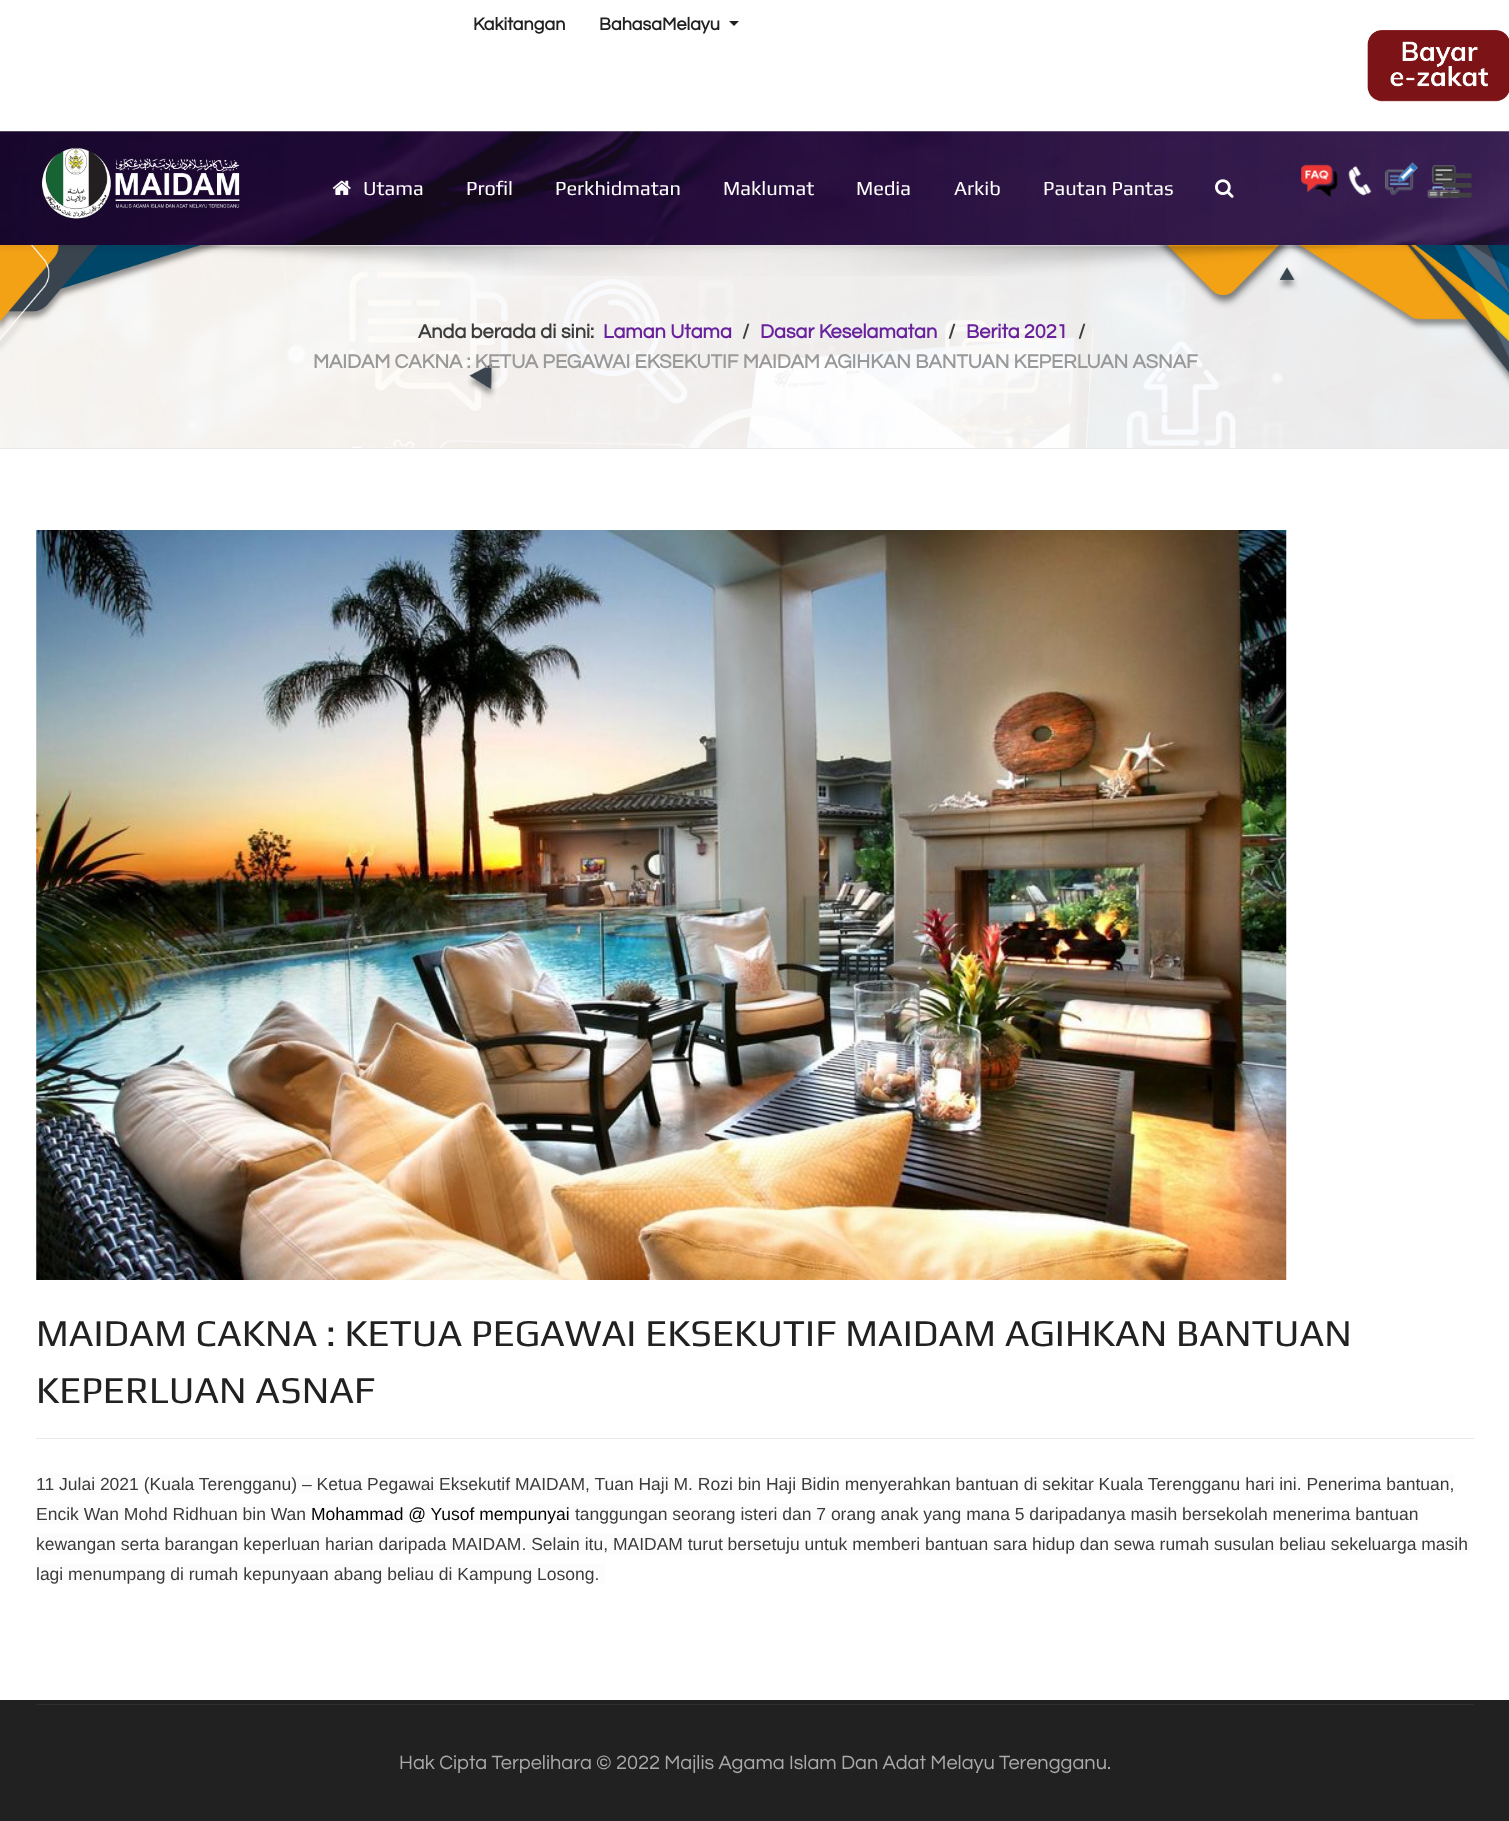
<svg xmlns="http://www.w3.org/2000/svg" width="1509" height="1821">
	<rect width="100%" height="100%" fill="#212121" />
	<rect x="0" y="0" width="1509" height="1700" fill="#FFFFFF" />
	<g font-family="Questrial" font-size="18" font-weight="700" fill="#212121">
		<text x="473" y="30">Kakitangan</text>
		<text x="599" y="30">BahasaMelayu</text>
	</g>
	<path d="M729 21H739L734 26Z" fill="#212121" />
	<image x="1367" y="30" width="142" height="72" href="assets/img1.png" />
	<image x="0" y="245" width="1509" height="203" href="assets/img12.png" />
	<rect x="0" y="135" width="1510" height="114" fill="#000000" fill-opacity="0.05" filter="blur(2px)" />
	<image x="0" y="131" width="1509" height="114" href="assets/img2.png" />
	<image x="41" y="147" width="199" height="72" href="assets/img3.png" />
	<image x="332" y="180" width="19" height="15" href="assets/img4.png" />
	<g font-family="Play" font-size="20" fill="#FFFFFF">
		<text x="363" y="195">Utama</text>
		<text x="466" y="195">Profil</text>
		<text x="555" y="195">Perkhidmatan</text>
		<text x="723" y="195">Maklumat</text>
		<text x="856" y="195">Media</text>
		<text x="954" y="195">Arkib</text>
		<text x="1043" y="195">Pautan Pantas</text>
	</g>
	<image x="1215" y="179" width="19" height="19" href="assets/img5.png" />
	<image x="1301" y="164" width="37" height="34" href="assets/img6.png" />
	<image x="1348" y="166" width="24" height="30" href="assets/img7.png" />
	<image x="1385" y="162" width="33" height="34" href="assets/img8.png" />
	<image x="1427" y="165" width="33" height="34" href="assets/img9.png" />
	<image x="170" y="245" width="1188" height="31" href="assets/img10.png" />
	<image x="1442" y="173" width="30" height="25" href="assets/img11.png" />
	<rect x="0" y="448" width="1509" height="1" fill="#E9E9E9" />
	<text x="418" y="338" font-family="Questrial" font-size="20" font-weight="700" fill="#3B3B3B">Anda berada di sini:</text>
	<text x="603" y="338" font-family="Questrial" font-size="20" font-weight="700" fill="#67219C">Laman Utama</text>
	<text x="742" y="338" font-family="Questrial" font-size="20" font-weight="700" fill="#3B3B3B">/</text>
	<text x="760" y="338" font-family="Questrial" font-size="20" font-weight="700" fill="#67219C">Dasar Keselamatan</text>
	<text x="948" y="338" font-family="Questrial" font-size="20" font-weight="700" fill="#3B3B3B">/</text>
	<text x="966" y="338" font-family="Questrial" font-size="20" font-weight="700" fill="#67219C">Berita 2021</text>
	<text x="1078" y="338" font-family="Questrial" font-size="20" font-weight="700" fill="#3B3B3B">/</text>
	<text x="313" y="368" font-family="Questrial" font-size="20" font-weight="700" fill="#999999">MAIDAM CAKNA : KETUA PEGAWAI EKSEKUTIF MAIDAM AGIHKAN BANTUAN KEPERLUAN ASNAF</text>
	<image x="36" y="530" width="1251" height="750" href="assets/img13.png" />
	<rect x="36" y="1438" width="1438" height="1" fill="#E9E9E9" />
	<g font-family="Play" font-size="38" fill="#212121">
		<text x="36" y="1346">MAIDAM CAKNA : KETUA PEGAWAI EKSEKUTIF MAIDAM AGIHKAN BANTUAN</text>
		<text x="36" y="1403">KEPERLUAN ASNAF</text>
	</g>
	<rect x="36" y="1474" width="1419" height="20" fill="#FCFCFC" />
	<text x="36" y="1490" font-family="Liberation Sans" font-size="17.5" fill="#3B3B3B">11 Julai 2021 (Kuala Terengganu) – Ketua Pegawai Eksekutif MAIDAM, Tuan Haji M. Rozi bin Haji Bidin menyerahkan bantuan di sekitar Kuala Terengganu hari ini. Penerima bantuan,</text>
	<rect x="36" y="1504" width="1383" height="20" fill="#FCFCFC" />
	<text x="36" y="1520" font-family="Liberation Sans" font-size="17.5" fill="#3B3B3B">Encik Wan Mohd Ridhuan bin Wan</text>
	<text x="311" y="1520" font-family="Liberation Sans" font-size="17.5" fill="#000000">Mohammad @ Yusof mempunyai</text>
	<text x="575" y="1520" font-family="Liberation Sans" font-size="17.5" fill="#3B3B3B">tanggungan seorang isteri dan 7 orang anak yang mana 5 daripadanya masih bersekolah menerima bantuan</text>
	<rect x="36" y="1534" width="1433" height="20" fill="#FCFCFC" />
	<text x="36" y="1550" font-family="Liberation Sans" font-size="17.5" fill="#3B3B3B">kewangan serta barangan keperluan harian daripada MAIDAM. Selain itu, MAIDAM turut bersetuju untuk memberi bantuan sara hidup dan sewa rumah susulan beliau sekeluarga masih</text>
	<rect x="36" y="1564" width="569" height="20" fill="#FCFCFC" />
	<text x="36" y="1580" font-family="Liberation Sans" font-size="17.5" fill="#3B3B3B">lagi menumpang di rumah kepunyaan abang beliau di Kampung Losong.</text>
	<rect x="36" y="1704" width="1438" height="1" fill="#2E2E2E" />
	<text x="399" y="1769" font-family="Questrial" font-size="20" fill="#AAAAAA">Hak Cipta Terpelihara © 2022 Majlis Agama Islam Dan Adat Melayu Terengganu.</text>
</svg>
